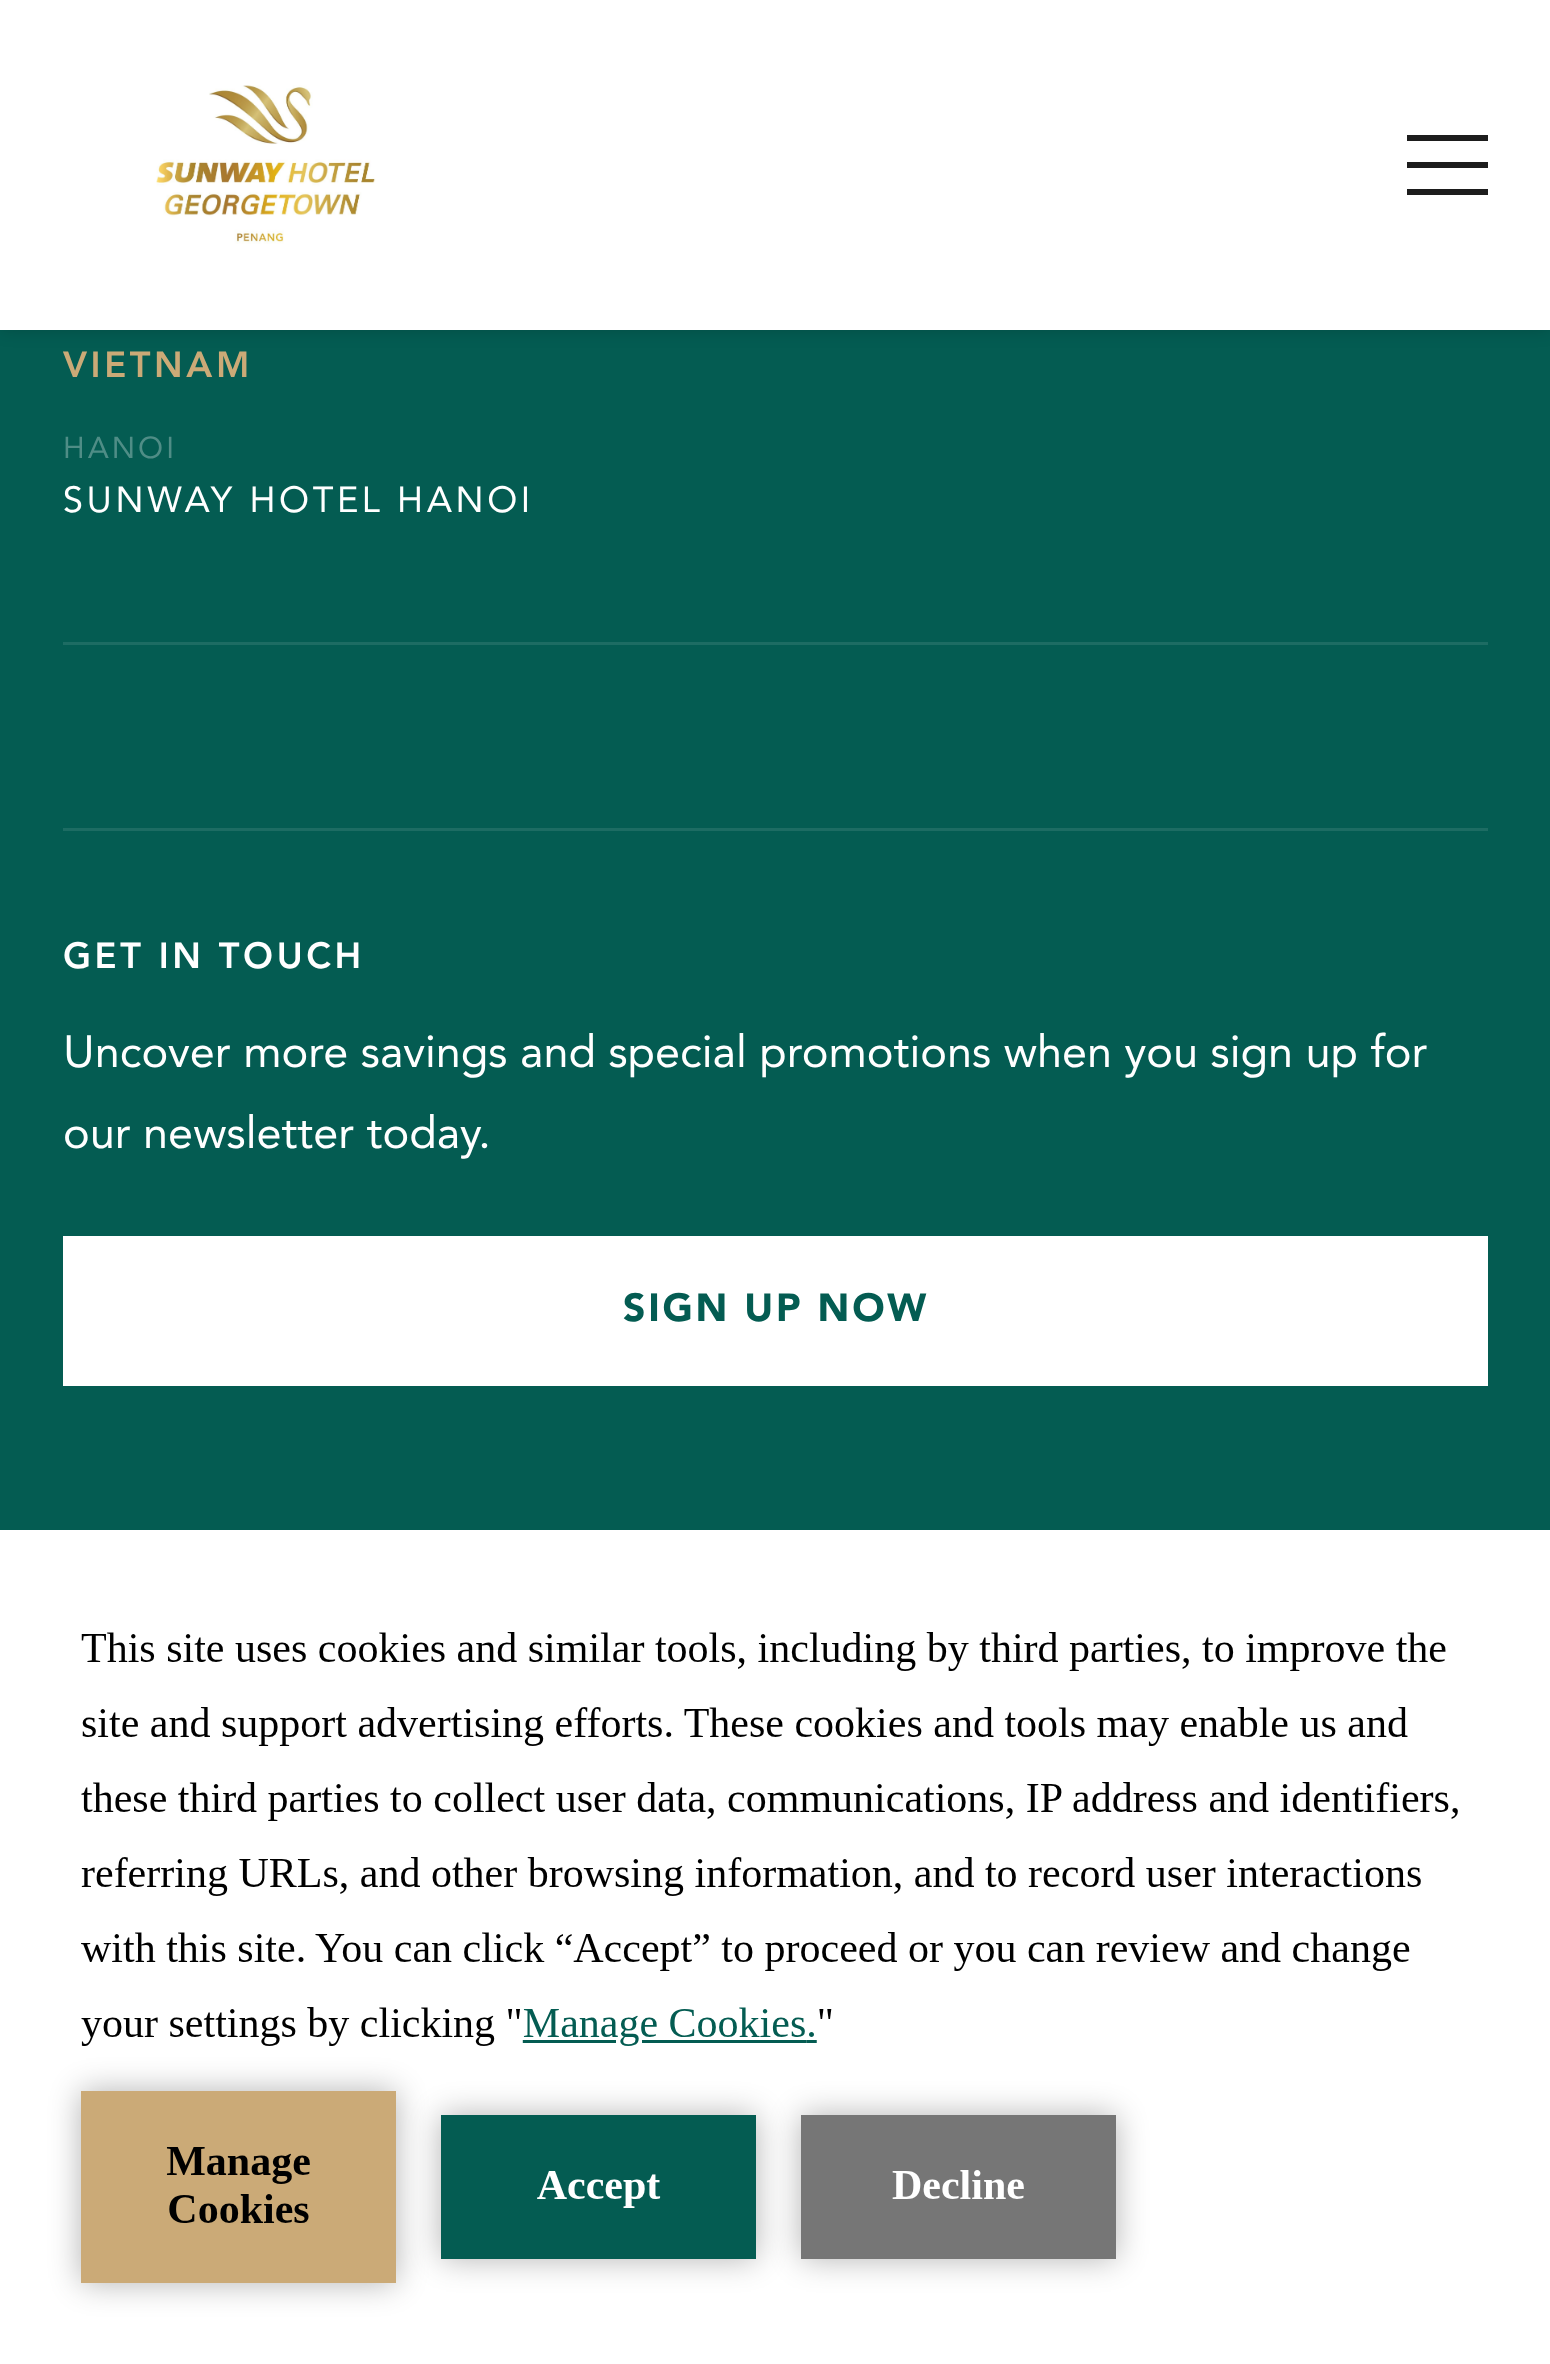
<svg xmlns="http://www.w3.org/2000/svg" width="1550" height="2364">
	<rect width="100%" height="100%" fill="#045C52" />
	<rect x="0" y="0" width="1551" height="330" fill="#000000" fill-opacity="0.16" filter="blur(8.5px)" />
	<rect x="0" y="0" width="1550" height="330" fill="#FFFFFF" />
	<image x="156" y="85" width="220" height="159" href="assets/img1.png" />
	<rect x="1407" y="135" width="81" height="6" fill="#1D1D1D" />
	<rect x="1407" y="162" width="81" height="6" fill="#1D1D1D" />
	<rect x="1407" y="189" width="81" height="6" fill="#1D1D1D" />
	<text x="63" y="377" font-family="Avenir" font-size="36" font-weight="900" letter-spacing="3.6" fill="#CBAA77">VIETNAM</text>
	<text x="63" y="458" font-family="Avenir" font-size="30" letter-spacing="3" fill="#4F8D86">HANOI</text>
	<text x="63" y="512" font-family="Avenir" font-size="36" letter-spacing="3.6" fill="#FFFFFF">SUNWAY HOTEL HANOI</text>
	<rect x="63" y="642" width="1425" height="3" fill="#1D6C63" />
	<rect x="63" y="828" width="1425" height="3" fill="#1D6C63" />
	<text x="63" y="968" font-family="Avenir" font-size="36" font-weight="900" letter-spacing="3.6" fill="#FFFFFF">GET IN TOUCH</text>
	<g font-family="Avenir" font-size="45" fill="#FFFFFF">
		<text x="63" y="1067">Uncover more savings and special promotions when you sign up for</text>
		<text x="63" y="1148">our newsletter today.</text>
	</g>
	<rect x="63" y="1236" width="1425" height="150" fill="#FFFFFF" />
	<text x="623" y="1321" font-family="'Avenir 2'" font-size="39" font-weight="900" letter-spacing="2.75" fill="#045C52">SIGN UP NOW</text>
	<image x="0" y="1530" width="1550" height="834" href="assets/img2.png" />
</svg>
